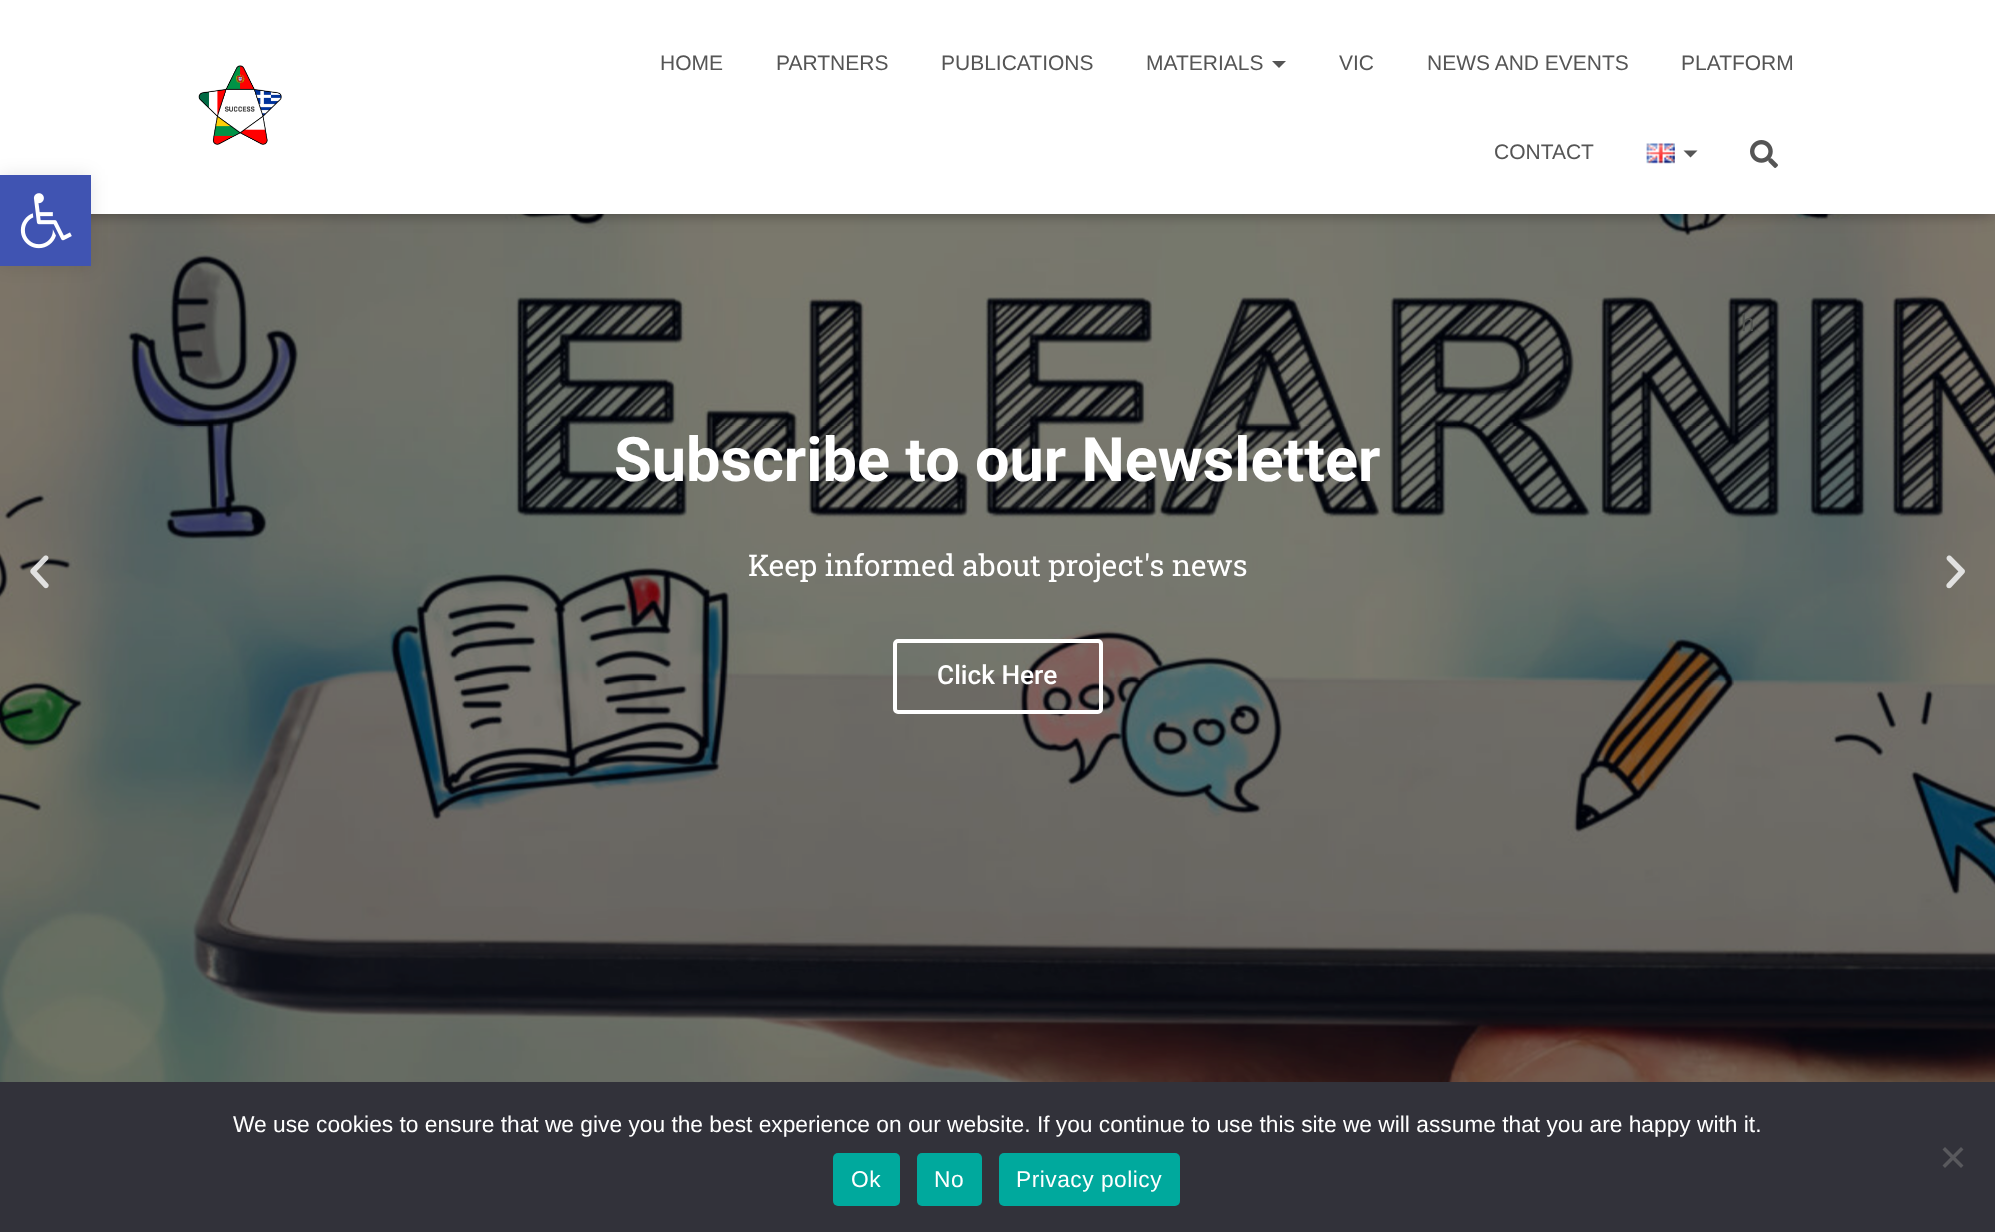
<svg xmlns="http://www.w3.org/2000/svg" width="1995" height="1232">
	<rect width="100%" height="100%" fill="#FFFFFF" />
	<image x="0" y="214" width="1995" height="868" href="assets/img6.png" />
	<rect x="4" y="11" width="1988" height="206" fill="#000000" fill-opacity="0.1" filter="blur(4.5px)" />
	<rect x="0" y="2" width="1995" height="213" fill="#000000" fill-opacity="0.12" filter="blur(9px)" />
	<rect x="11" y="12" width="1974" height="193" fill="#000000" fill-opacity="0.42" filter="blur(9px)" />
	<rect x="0" y="0" width="1995" height="214" fill="#FFFFFF" />
	<rect x="0" y="175" width="91" height="91" fill="#000000" fill-opacity="0.1" filter="blur(9px)" />
	<rect x="0" y="175" width="91" height="91" fill="#4054B2" />
	<image x="20" y="193" width="52" height="56" href="assets/img1.png" />
	<image x="198" y="65" width="84" height="80" href="assets/img2.png" />
	<g font-family="Liberation Sans" font-size="21" fill="#555555">
		<text x="660" y="70">HOME</text>
		<text x="776" y="70">PARTNERS</text>
		<text x="941" y="70">PUBLICATIONS</text>
		<text x="1146" y="70">MATERIALS</text>
	</g>
	<path d="M1272 61H1286L1279 68Z" fill="#555555" />
	<g font-family="Liberation Sans" font-size="21" fill="#555555">
		<text x="1339" y="70">VIC</text>
		<text x="1427" y="70">NEWS AND EVENTS</text>
		<text x="1681" y="70">PLATFORM</text>
		<text x="1494" y="159">CONTACT</text>
	</g>
	<image x="1646" y="143" width="29" height="21" href="assets/img3.png" />
	<path d="M1683.5 150.5H1697.5L1690.5 157.5Z" fill="#555555" />
	<image x="1750" y="140" width="28" height="28" href="assets/img4.png" />
	<text x="1741" y="331" font-family="Liberation Sans" font-size="24" fill="#50524F">h</text>
	<image x="30" y="555" width="19" height="34" href="assets/img5.png" />
	<text x="614" y="481" font-family="Roboto" font-size="61.25" font-weight="700" fill="#FFFFFF">Subscribe to our Newsletter</text>
	<text x="748" y="576" font-family="Roboto Slab" font-size="29.75" fill="#FFFFFF">Keep informed about project's news</text>
	<rect x="895" y="641" width="206" height="71" rx="3" fill="none" stroke="#FFFFFF" stroke-width="4" />
	<text x="937" y="684" font-family="Roboto" font-size="26.25" font-weight="500" fill="#FFFFFF">Click Here</text>
	<image x="1946" y="555" width="19" height="34" href="assets/img7.png" />
	<rect x="0" y="1082" width="1995" height="150" fill="#32323A" />
	<text x="233" y="1132" font-family="Liberation Sans" font-size="22.75" fill="#FFFFFF">We use cookies to ensure that we give you the best experience on our website. If you continue to use this site we will assume that you are happy with it.</text>
	<path d="M1961 1147L1963.5 1149.5L1945 1168L1942.5 1165.5Z" fill="#59595D" />
	<path d="M1942.5 1149.5L1945 1147L1963.5 1165.5L1961 1168Z" fill="#59595D" />
	<rect x="833" y="1153" width="67" height="53" rx="5" fill="#00A99D" />
	<text x="851" y="1187" font-family="Liberation Sans" font-size="22.75" letter-spacing="0.5" fill="#FFFFFF">Ok</text>
	<rect x="917" y="1153" width="65" height="53" rx="5" fill="#00A99D" />
	<text x="934" y="1187" font-family="Liberation Sans" font-size="22.75" letter-spacing="0.5" fill="#FFFFFF">No</text>
	<rect x="999" y="1153" width="181" height="53" rx="5" fill="#00A99D" />
	<text x="1016" y="1187" font-family="Liberation Sans" font-size="22.75" letter-spacing="0.5" fill="#FFFFFF">Privacy policy</text>
</svg>
